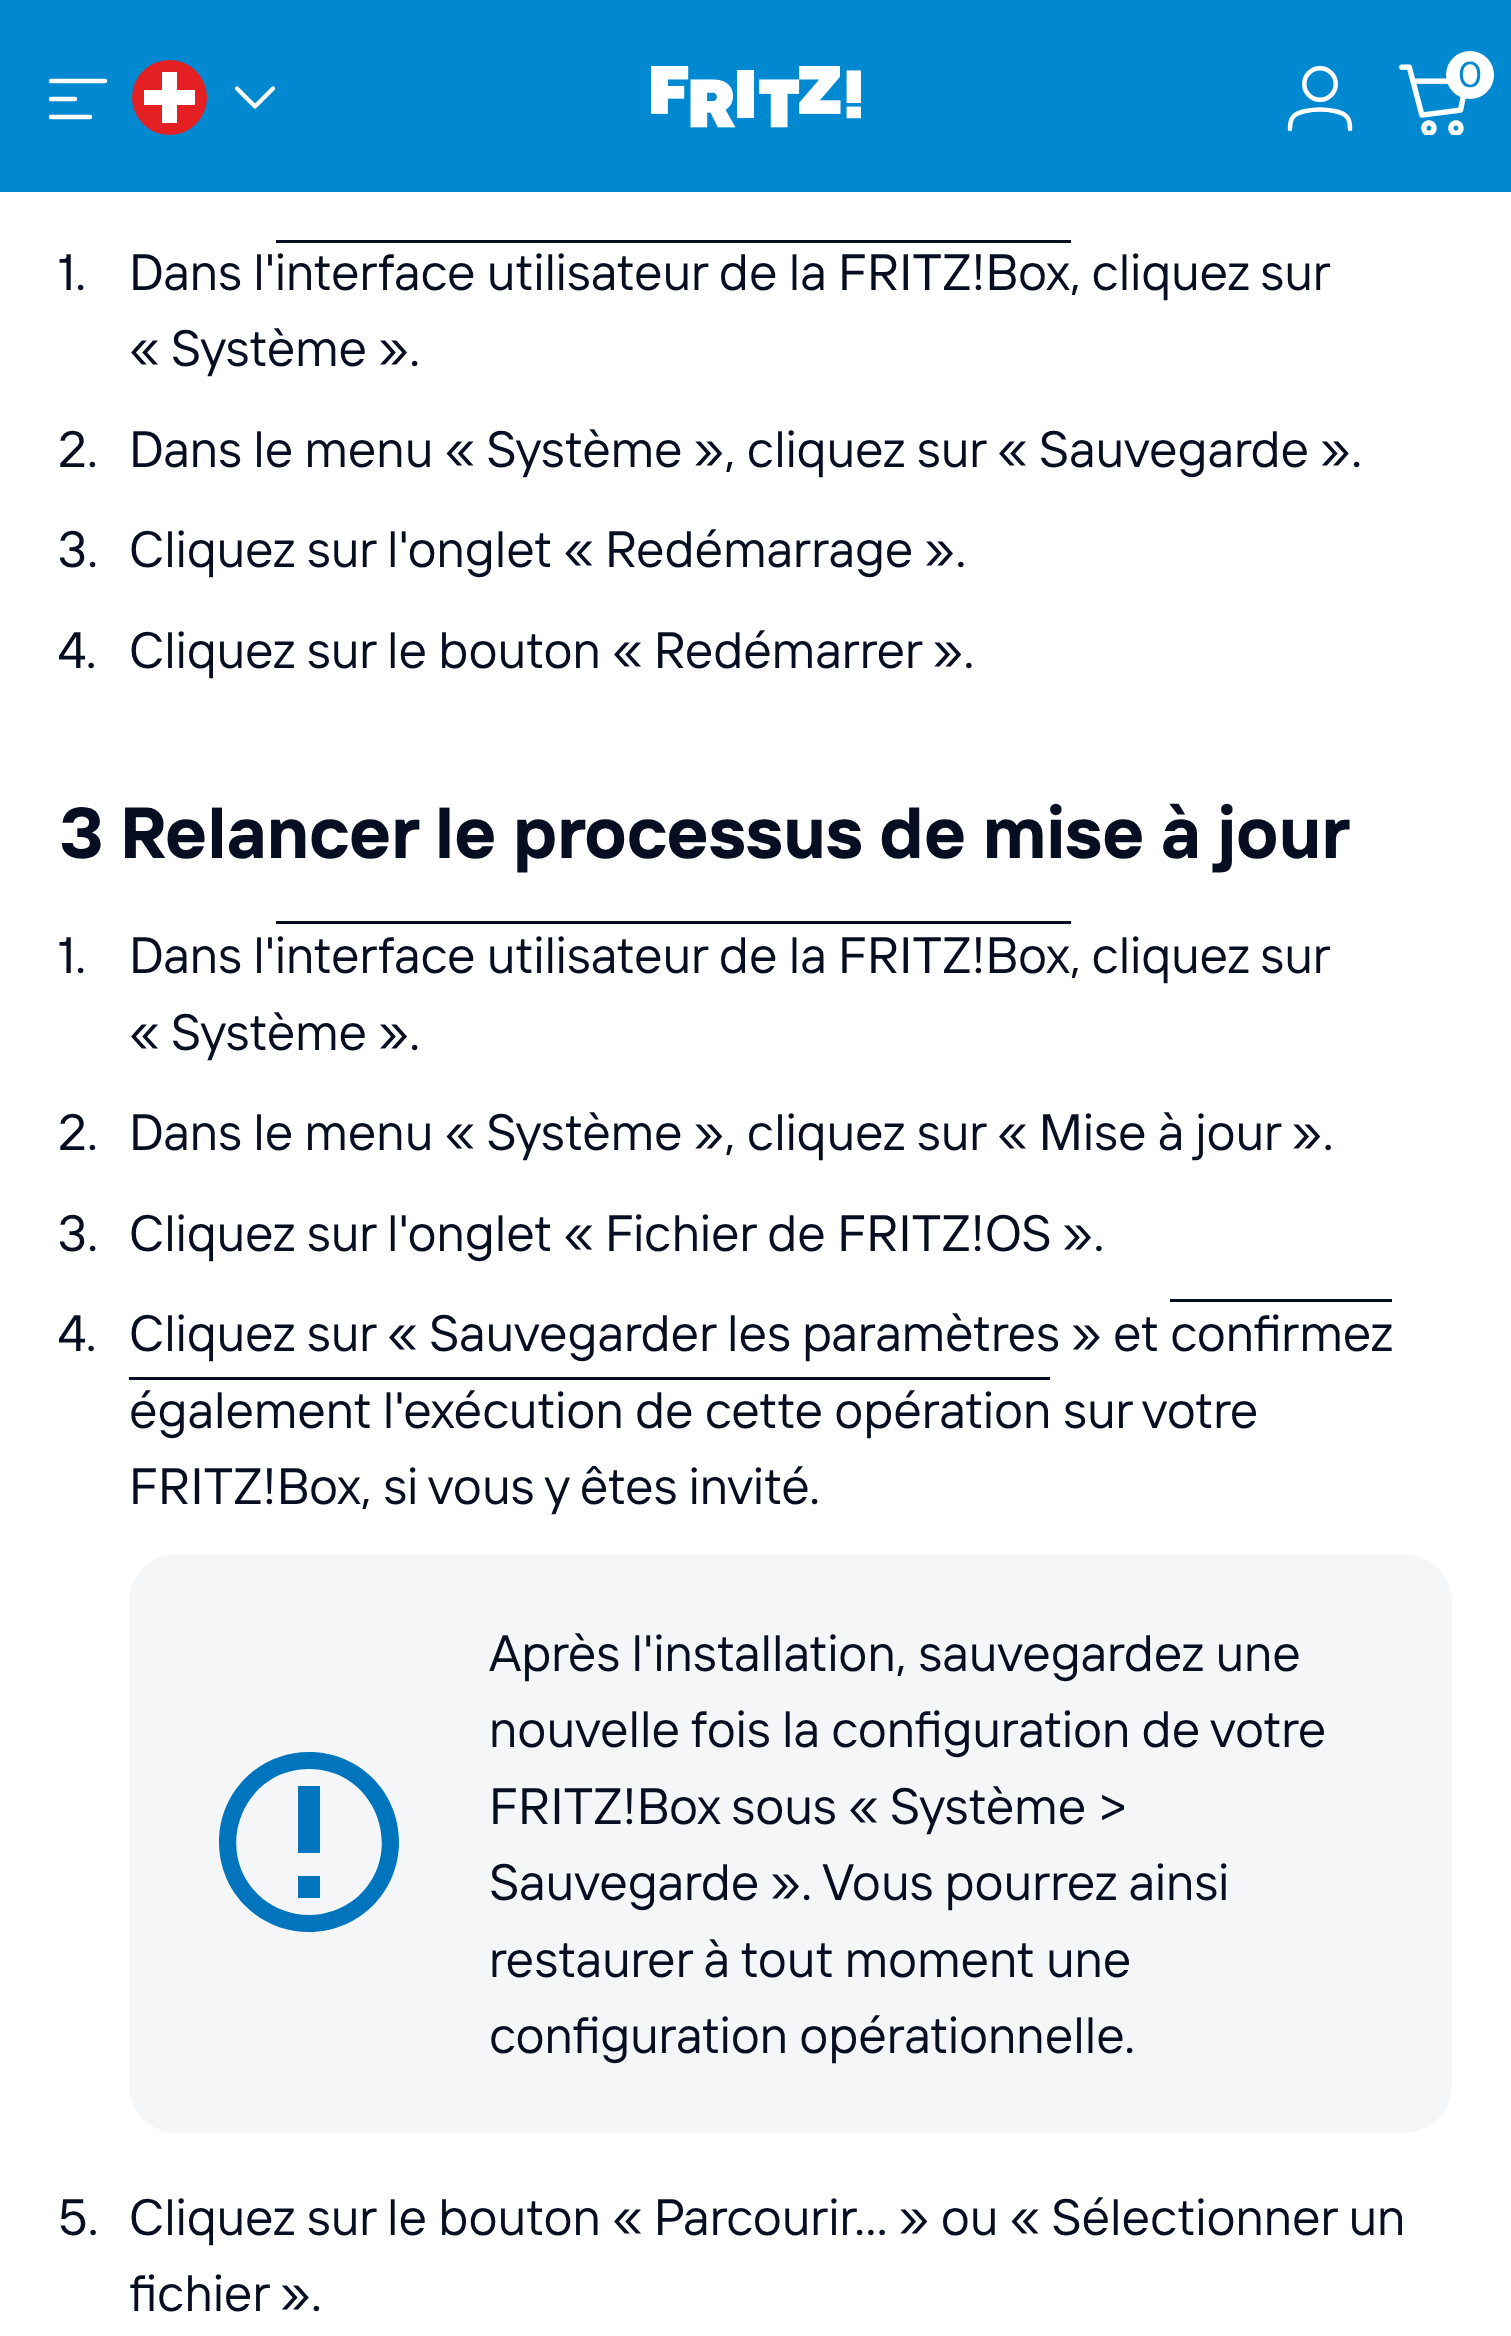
<svg xmlns="http://www.w3.org/2000/svg" width="1511" height="2336">
	<rect width="100%" height="100%" fill="#FFFFFF" />
	<rect x="0" y="0" width="1511" height="192" fill="#0089D1" />
	<path d="M51 81H105M51 99H75M51 117H90" fill="none" stroke="#FFFFFF" stroke-width="4.5" stroke-linecap="round" />
	<circle cx="169.5" cy="97.5" r="37.5" fill="#E42022" />
	<path d="M195 90H177V72H162V90H144V105H162V123H177V105H195Z" fill="#FFFFFF" />
	<path d="M237 88.5L255 106.5L273 88.5" fill="none" stroke="#FFFFFF" stroke-width="4.2" stroke-linecap="round" stroke-linejoin="round" />
	<image x="651" y="66" width="210" height="62" href="assets/img1.png" />
	<circle cx="1320" cy="84" r="15.75" fill="none" stroke="#FFFFFF" stroke-width="4.5" />
	<path d="M1320 109.5C1327 109.5 1342.5 111 1347 117C1350 120.5 1350 124.5 1350 129M1320 109.5C1313 109.5 1297.5 111 1293 117C1290 120.5 1290 124.5 1290 129" fill="none" stroke="#FFFFFF" stroke-width="4.5" stroke-linecap="round" />
	<image x="1398" y="64" width="68" height="71" href="assets/img2.png" />
	<circle cx="1470" cy="75" r="24" fill="#FFFFFF" />
	<text x="1458" y="87" font-family="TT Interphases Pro" font-size="36" fill="#0089D1">0</text>
	<rect x="276" y="240" width="795" height="3" fill="#070E21" />
	<g font-family="TT Interphases Pro" font-size="51" fill="#070E21">
		<text x="58" y="290">1.</text>
		<text x="129" y="290">Dans l'interface utilisateur de la FRITZ!Box</text>
		<text x="1070" y="290" word-spacing="-1">, cliquez sur</text>
		<text x="129" y="366">« Système ».</text>
		<text x="58" y="467">2.</text>
		<text x="129" y="467">Dans le menu « Système », cliquez sur « Sauvegarde ».</text>
		<text x="58" y="567">3.</text>
		<text x="129" y="567">Cliquez sur l'onglet « Redémarrage ».</text>
		<text x="58" y="668">4.</text>
		<text x="129" y="668">Cliquez sur le bouton « Redémarrer ».</text>
	</g>
	<text x="60" y="858" font-family="TT Interphases Pro" font-size="72" font-weight="700" fill="#070E21">3 Relancer le processus de mise à jour</text>
	<rect x="276" y="921" width="795" height="3" fill="#070E21" />
	<g font-family="TT Interphases Pro" font-size="51" fill="#070E21">
		<text x="58" y="973">1.</text>
		<text x="129" y="973">Dans l'interface utilisateur de la FRITZ!Box</text>
		<text x="1070" y="973" word-spacing="-1">, cliquez sur</text>
		<text x="129" y="1050">« Système ».</text>
		<text x="58" y="1150">2.</text>
		<text x="129" y="1150">Dans le menu « Système », cliquez sur « Mise à jour ».</text>
		<text x="58" y="1251">3.</text>
		<text x="129" y="1251">Cliquez sur l'onglet « Fichier de FRITZ!OS ».</text>
		<text x="58" y="1351">4.</text>
		<text x="129" y="1351">Cliquez sur « Sauvegarder les paramètres » et confirmez</text>
		<text x="129" y="1428">également l'exécution de cette opération</text>
	</g>
	<rect x="1170" y="1299" width="222" height="3" fill="#070E21" />
	<rect x="129" y="1377" width="921" height="3" fill="#070E21" />
	<g font-family="TT Interphases Pro" font-size="51" fill="#070E21">
		<text x="1063" y="1428">sur votre</text>
		<text x="129" y="1504">FRITZ!Box, si vous y êtes invité.</text>
	</g>
	<rect x="129" y="1554" width="1323" height="579" rx="48" fill="#F4F6F8" />
	<g font-family="TT Interphases Pro" font-size="51" fill="#070E21">
		<text x="489" y="1671">Après l'installation, sauvegardez une</text>
		<text x="489" y="1747">nouvelle fois la configuration de votre</text>
	</g>
	<path d="M309 1769C241 1769 210 1855 263 1899C276 1909 292 1915 309 1915C326 1915 342 1909 355 1899C408 1855 377 1769 309 1769ZM309 1752C359 1752 399 1792 399 1842C399 1892 359 1932 309 1932C259 1932 219 1892 219 1842C219 1792 259 1752 309 1752ZM298 1876H320V1898H298ZM298 1786H320V1853H298Z" fill="#0074BD" />
	<g font-family="TT Interphases Pro" font-size="51" fill="#070E21">
		<text x="489" y="1824">FRITZ!Box sous « Système &gt;</text>
		<text x="489" y="1900">Sauvegarde ». Vous pourrez ainsi</text>
		<text x="489" y="1977">restaurer à tout moment une</text>
		<text x="489" y="2053">configuration opérationnelle.</text>
		<text x="58" y="2235">5.</text>
		<text x="129" y="2235">Cliquez sur le bouton « Parcourir... » ou « Sélectionner un</text>
		<text x="129" y="2311">fichier ».</text>
	</g>
</svg>
